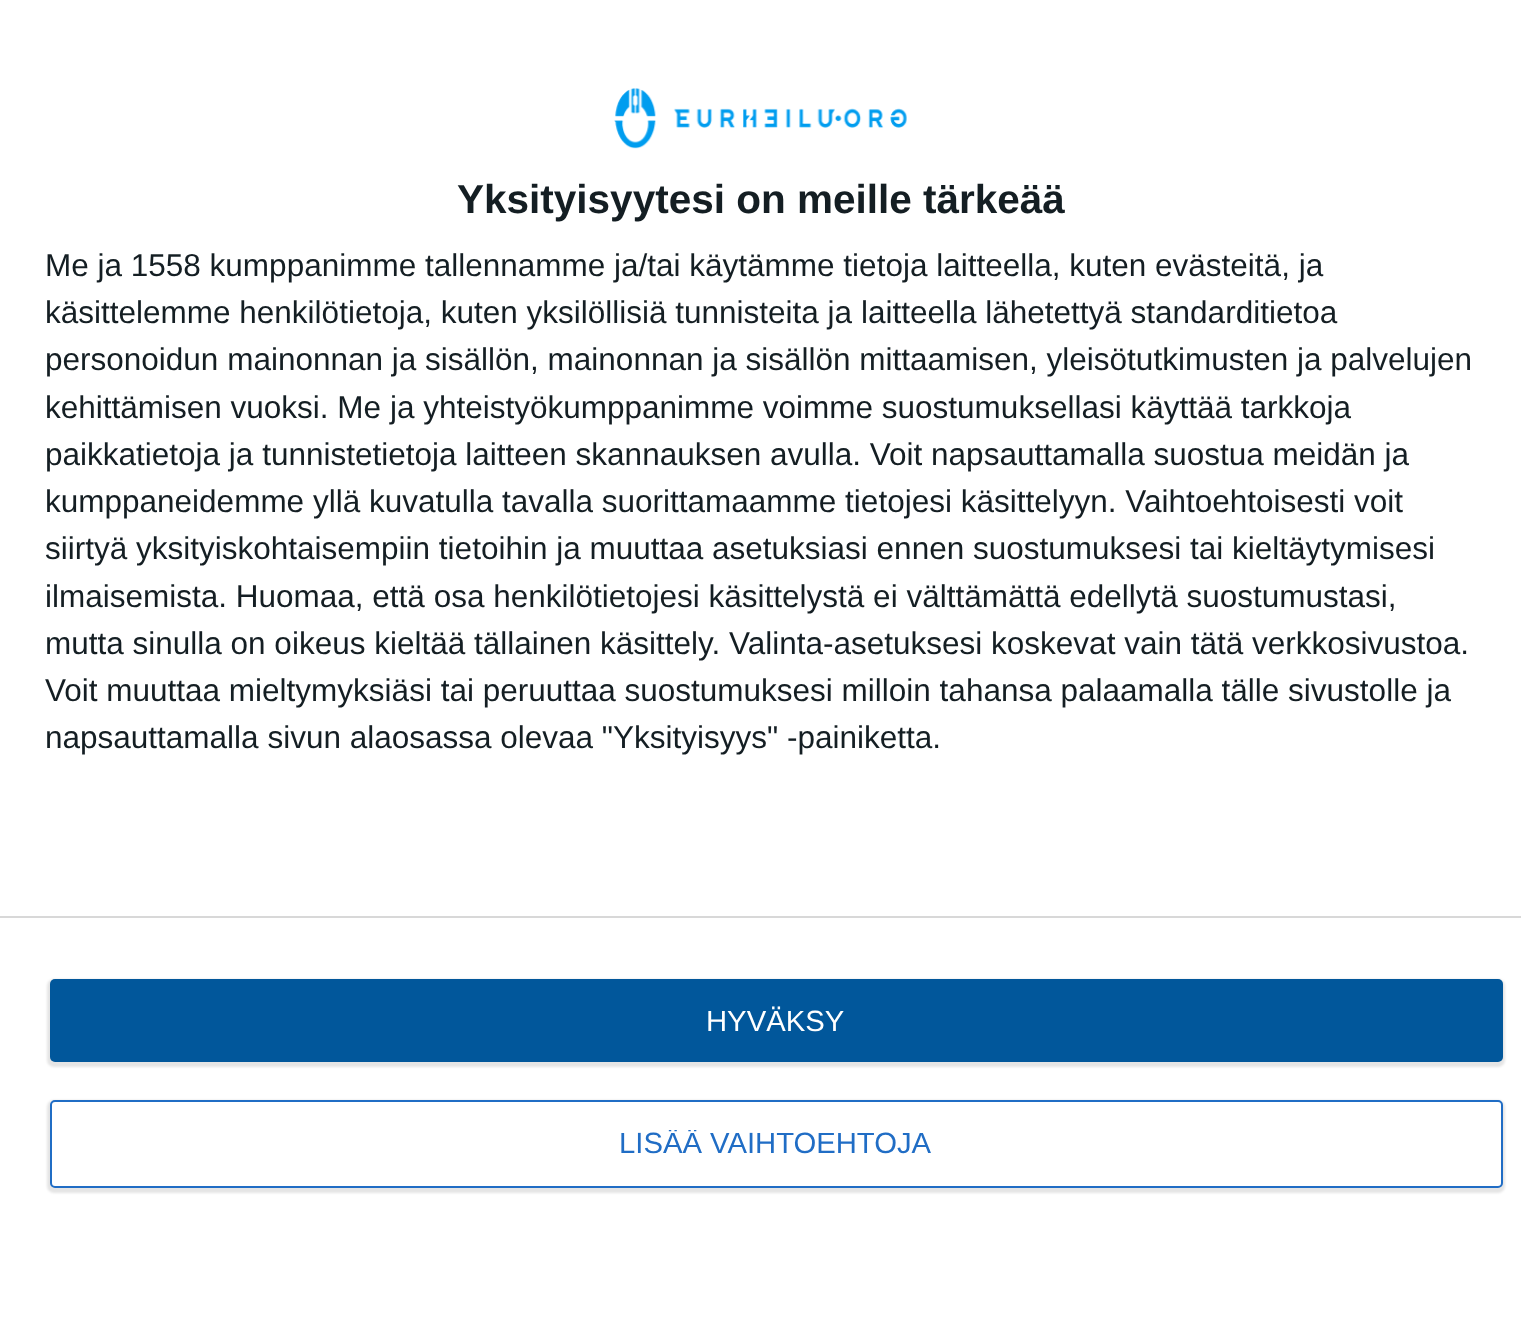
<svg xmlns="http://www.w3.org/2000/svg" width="1521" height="1336">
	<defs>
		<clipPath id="clip1"><rect x="619" y="1130" width="313" height="29" /></clipPath>
	</defs>
	<rect width="100%" height="100%" fill="#FFFFFF" />
	<image x="614" y="88" width="293" height="61" href="assets/img1.png" />
	<text x="457" y="213" font-family="Liberation Sans" font-size="40.5" font-weight="700" fill="#141E23">Yksityisyytesi on meille tärkeää</text>
	<g font-family="Liberation Sans" font-size="31.5" fill="#141E23">
		<text x="45" y="276">Me ja 1558 kumppanimme tallennamme ja/tai käytämme tietoja laitteella, kuten evästeitä, ja</text>
		<text x="45" y="323">käsittelemme henkilötietoja, kuten yksilöllisiä tunnisteita ja laitteella lähetettyä standarditietoa</text>
		<text x="45" y="370">personoidun mainonnan ja sisällön, mainonnan ja sisällön mittaamisen, yleisötutkimusten ja palvelujen</text>
		<text x="45" y="418">kehittämisen vuoksi. Me ja yhteistyökumppanimme voimme suostumuksellasi käyttää tarkkoja</text>
		<text x="45" y="465">paikkatietoja ja tunnistetietoja laitteen skannauksen avulla. Voit napsauttamalla suostua meidän ja</text>
		<text x="45" y="512">kumppaneidemme yllä kuvatulla tavalla suorittamaamme tietojesi käsittelyyn. Vaihtoehtoisesti voit</text>
		<text x="45" y="559">siirtyä yksityiskohtaisempiin tietoihin ja muuttaa asetuksiasi ennen suostumuksesi tai kieltäytymisesi</text>
		<text x="45" y="607">ilmaisemista. Huomaa, että osa henkilötietojesi käsittelystä ei välttämättä edellytä suostumustasi,</text>
		<text x="45" y="654">mutta sinulla on oikeus kieltää tällainen käsittely. Valinta-asetuksesi koskevat vain tätä verkkosivustoa.</text>
		<text x="45" y="701">Voit muuttaa mieltymyksiäsi tai peruuttaa suostumuksesi milloin tahansa palaamalla tälle sivustolle ja</text>
		<text x="45" y="748">napsauttamalla sivun alaosassa olevaa "Yksityisyys" -painiketta.</text>
	</g>
	<rect x="0" y="916" width="1521" height="2" fill="#D8D8D8" />
	<rect x="47" y="979" width="1458" height="88" rx="7" fill="#000000" fill-opacity="0.1" filter="blur(1px)" />
	<rect x="50" y="979" width="1453" height="83" rx="5" fill="#01579B" />
	<text x="706" y="1031" font-family="Liberation Sans" font-size="29.25" fill="#FFFFFF">HYVÄKSY</text>
	<rect x="47" y="1100" width="1458" height="93" rx="7" fill="#000000" fill-opacity="0.1" filter="blur(1px)" />
	<rect x="51" y="1101" width="1451" height="86" rx="4" fill="#FFFFFF" stroke="#206DC5" stroke-width="2" />
	<g clip-path="url(#clip1)">
		<text x="619" y="1153" font-family="Liberation Sans" font-size="29.25" fill="#206DC5">LISÄÄ VAIHTOEHTOJA</text>
	</g>
</svg>
